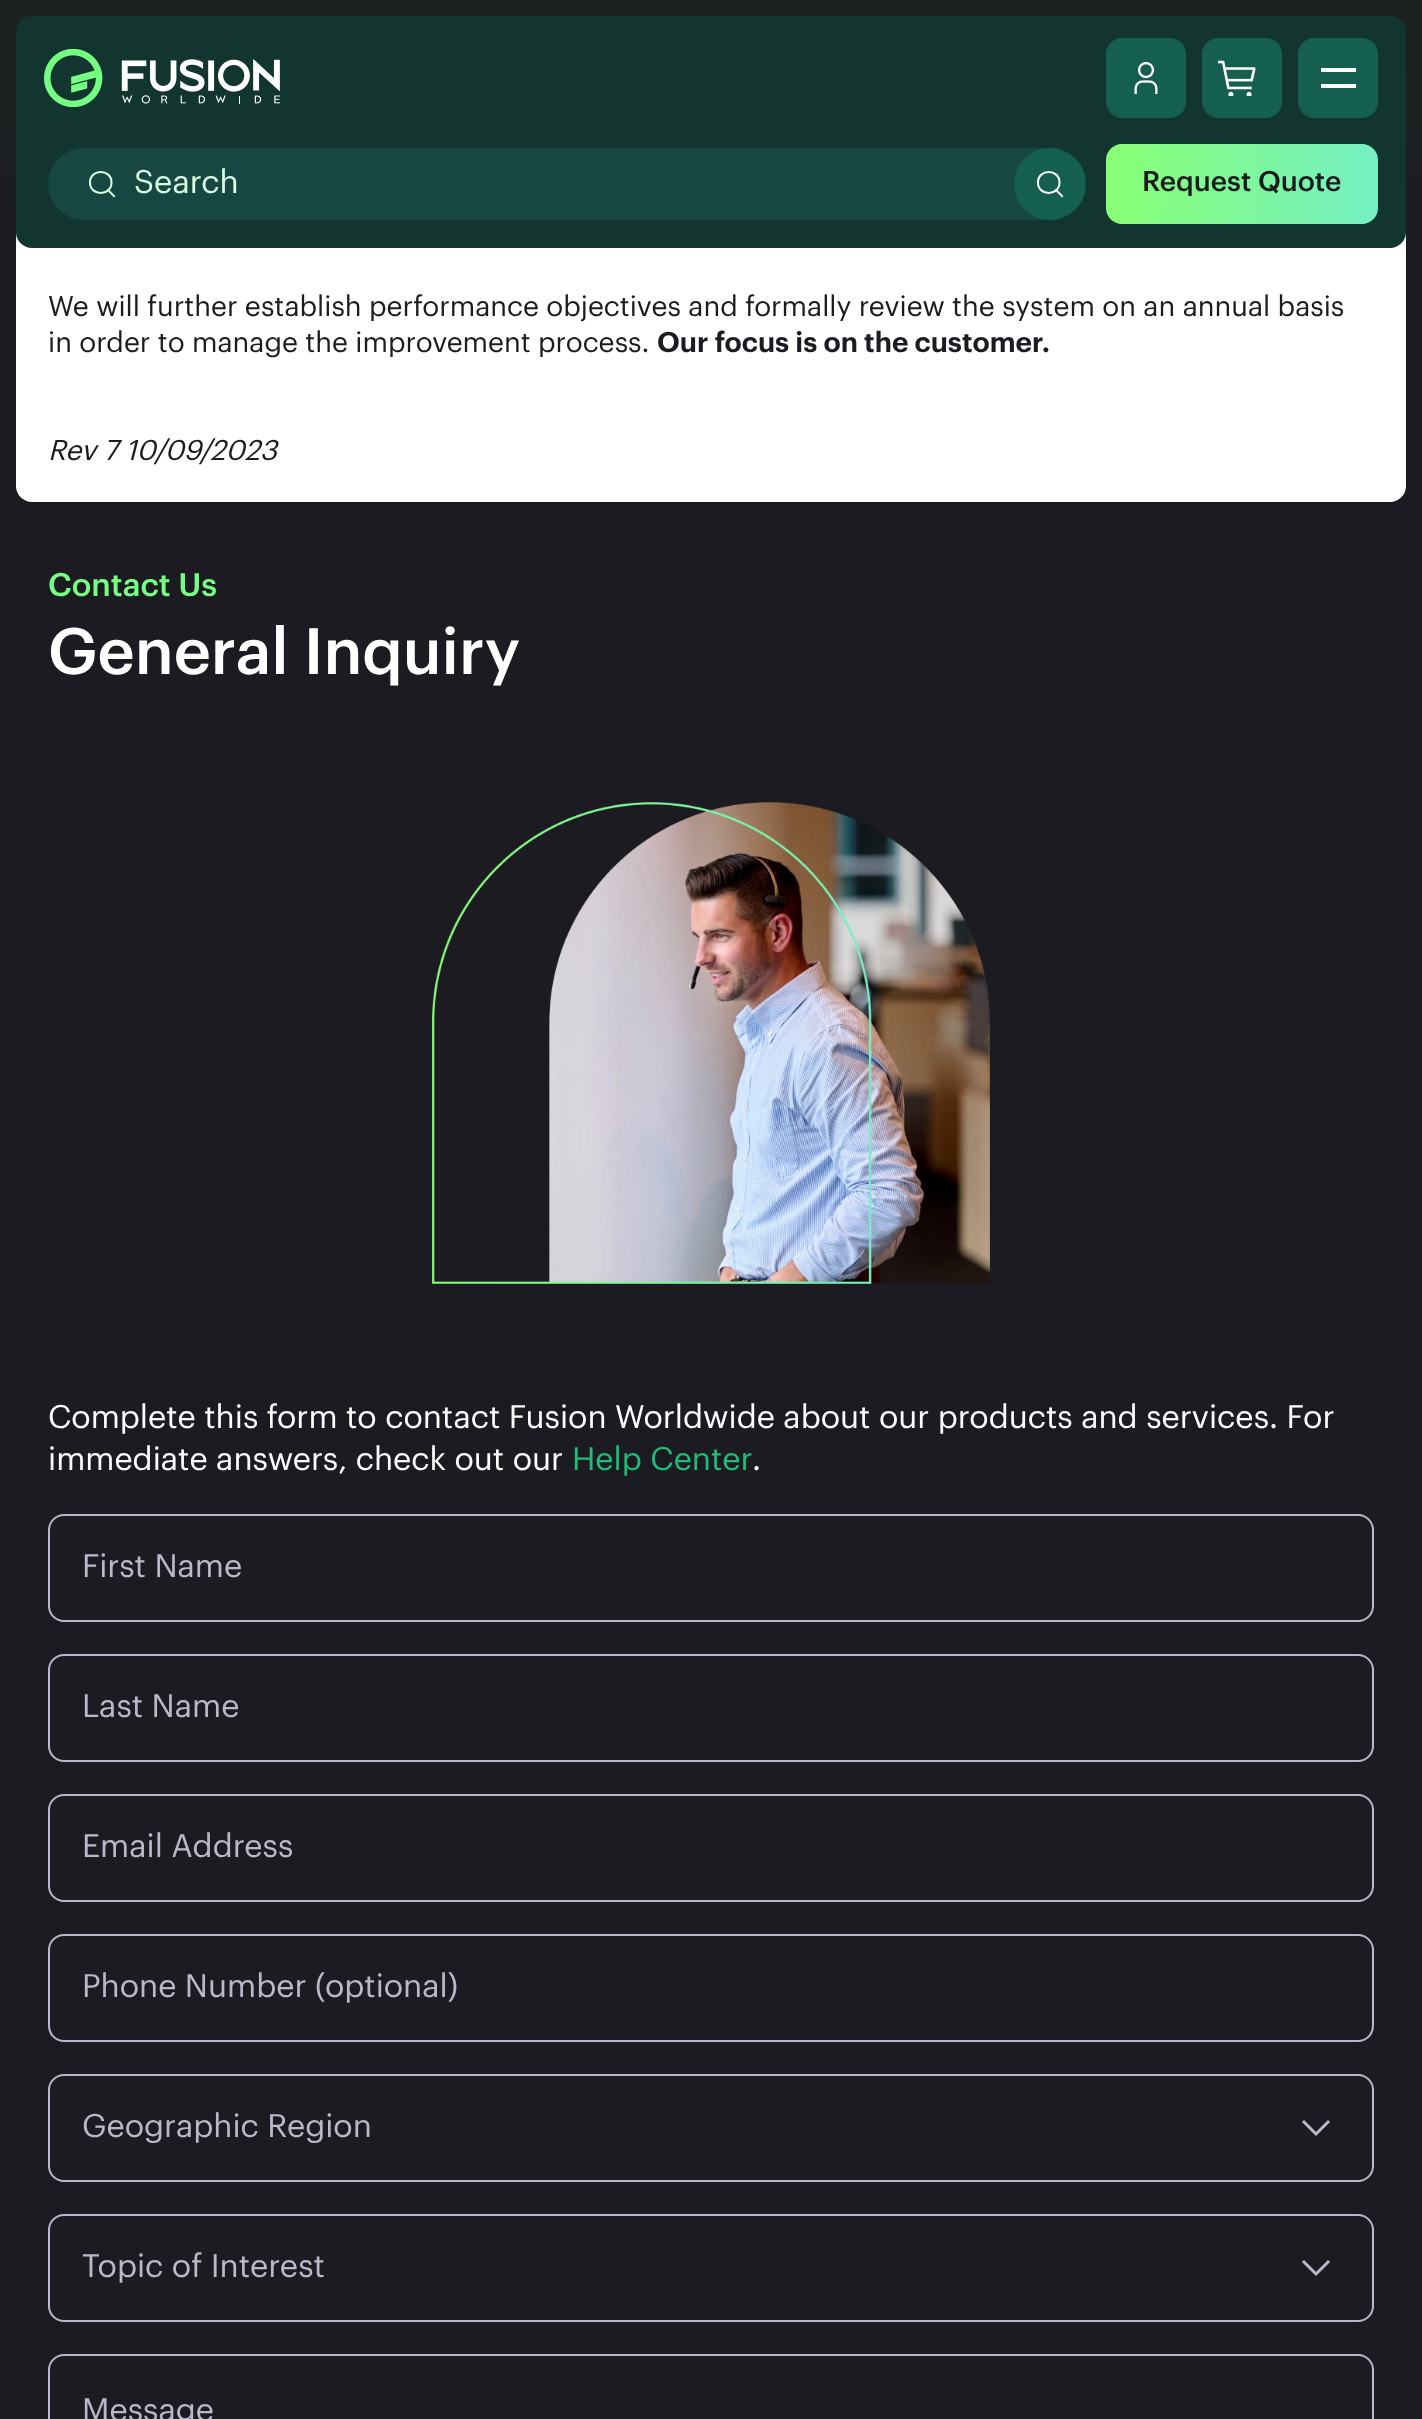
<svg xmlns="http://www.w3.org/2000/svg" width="1422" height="2419">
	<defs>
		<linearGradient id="g1" gradientUnits="userSpaceOnUse" x1="711" y1="0" x2="711" y2="248"><stop offset="0.22" stop-color="#1B2220" /><stop offset="1" stop-color="#1B2220" stop-opacity="0" /></linearGradient>
		<linearGradient id="g2" gradientUnits="userSpaceOnUse" x1="1105" y1="182" x2="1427" y2="187"><stop offset="0.01" stop-color="#88FF74" /><stop offset="1" stop-color="#72EDD1" /></linearGradient>
	</defs>
	<rect width="100%" height="100%" fill="#1C1B22" />
	<rect x="16" y="-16" width="1390" height="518" rx="16" fill="#FFFFFF" />
	<rect x="0" y="0" width="1422" height="244" fill="url(#g1)" />
	<rect x="16" y="16" width="1390" height="232" rx="16" fill="#123530" />
	<image x="44" y="49" width="236" height="58" href="assets/img1.png" />
	<rect x="1107" y="39" width="78" height="78" rx="15" fill="#145F4F" stroke="#145F4F" stroke-width="2" />
	<image x="1134" y="62" width="24" height="32" href="assets/img2.png" />
	<rect x="1202" y="38" width="80" height="80" rx="16" fill="#145F4F" />
	<image x="1218" y="60" width="38" height="36" href="assets/img3.png" />
	<rect x="1299" y="39" width="78" height="78" rx="15" fill="#145F4F" stroke="#145F4F" stroke-width="2" />
	<rect x="1321" y="68" width="35" height="4" fill="#FFFFFF" />
	<rect x="1321" y="84" width="35" height="4" fill="#FFFFFF" />
	<rect x="48" y="148" width="1038" height="72" rx="36" fill="#184743" />
	<path d="M114 196L108 190M111.5 182.5C111.5 196.5 90 196.5 90 182.5C90 168.5 111.5 168.5 111.5 182.5Z" fill="none" stroke="#DAFFE1" stroke-width="2" stroke-linecap="square" stroke-linejoin="round" />
	<text x="134" y="193" font-family="Graphik" font-size="32" fill="#DAFFE1">Search</text>
	<circle cx="1050" cy="184" r="36" fill="#145F4F" />
	<path d="M1062 196L1056 190M1059.5 182.5C1059.5 196.5 1038 196.5 1038 182.5C1038 168.5 1059.5 168.5 1059.5 182.5Z" fill="none" stroke="#FFFFFF" stroke-width="2" stroke-linecap="square" stroke-linejoin="round" />
	<rect x="1106" y="144" width="272" height="80" rx="16" fill="url(#g2)" />
	<text x="1142" y="191" font-family="Graphik" font-size="28" font-weight="500" fill="#1C1B22">Request Quote</text>
	<g font-family="Graphik" font-size="28" fill="#1C1B22">
		<text x="48" y="316">We will further establish performance objectives and formally review the system on an annual basis</text>
		<text x="48" y="352">in order to manage the improvement process.</text>
	</g>
	<text x="657" y="352" font-family="Graphik" font-size="28" font-weight="600" fill="#1C1B22">Our focus is on the customer.</text>
	<text x="48" y="460" font-family="Graphik" font-size="28" font-style="italic" fill="#1C1B22">Rev 7 10/09/2023</text>
	<text x="48" y="596" font-family="Graphik" font-size="32" font-weight="500" fill="#74FF82">Contact Us</text>
	<text x="48" y="674" font-family="Graphik" font-size="64" font-weight="500" fill="#FFFFFF">General Inquiry</text>
	<image x="432" y="802" width="558" height="482" href="assets/img4.png" />
	<g font-family="Graphik" font-size="32" fill="#FFFFFF">
		<text x="48" y="1428">Complete this form to contact Fusion Worldwide about our products and services. For</text>
		<text x="48" y="1470">immediate answers, check out our</text>
	</g>
	<text x="572" y="1470" font-family="Graphik" font-size="32" fill="#1EBD78">Help Center</text>
	<text x="752" y="1470" font-family="Graphik" font-size="32" fill="#FFFFFF">.</text>
	<rect x="49" y="1515" width="1324" height="106" rx="15" fill="none" stroke="#BCB8CA" stroke-width="2" />
	<text x="82" y="1577" font-family="Graphik" font-size="32" fill="#BCB8CA">First Name</text>
	<rect x="49" y="1655" width="1324" height="106" rx="15" fill="none" stroke="#BCB8CA" stroke-width="2" />
	<text x="82" y="1717" font-family="Graphik" font-size="32" fill="#BCB8CA">Last Name</text>
	<rect x="49" y="1795" width="1324" height="106" rx="15" fill="none" stroke="#BCB8CA" stroke-width="2" />
	<text x="82" y="1857" font-family="Graphik" font-size="32" fill="#BCB8CA">Email Address</text>
	<rect x="49" y="1935" width="1324" height="106" rx="15" fill="none" stroke="#BCB8CA" stroke-width="2" />
	<text x="82" y="1997" font-family="Graphik" font-size="32" fill="#BCB8CA">Phone Number (optional)</text>
	<rect x="49" y="2075" width="1324" height="106" rx="15" fill="none" stroke="#BCB8CA" stroke-width="2" />
	<text x="82" y="2137" font-family="Graphik" font-size="32" fill="#BCB8CA">Geographic Region</text>
	<path d="M1304 2122L1316 2134L1328 2122" fill="none" stroke="#BCB8CA" stroke-width="3" stroke-linecap="square" />
	<rect x="49" y="2215" width="1324" height="106" rx="15" fill="none" stroke="#BCB8CA" stroke-width="2" />
	<text x="82" y="2277" font-family="Graphik" font-size="32" fill="#BCB8CA">Topic of Interest</text>
	<path d="M1304 2262L1316 2274L1328 2262" fill="none" stroke="#BCB8CA" stroke-width="3" stroke-linecap="square" />
	<rect x="49" y="2355" width="1324" height="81" rx="15" fill="none" stroke="#BCB8CA" stroke-width="2" />
	<text x="82" y="2421" font-family="Graphik" font-size="32" fill="#BCB8CA">Message</text>
</svg>
